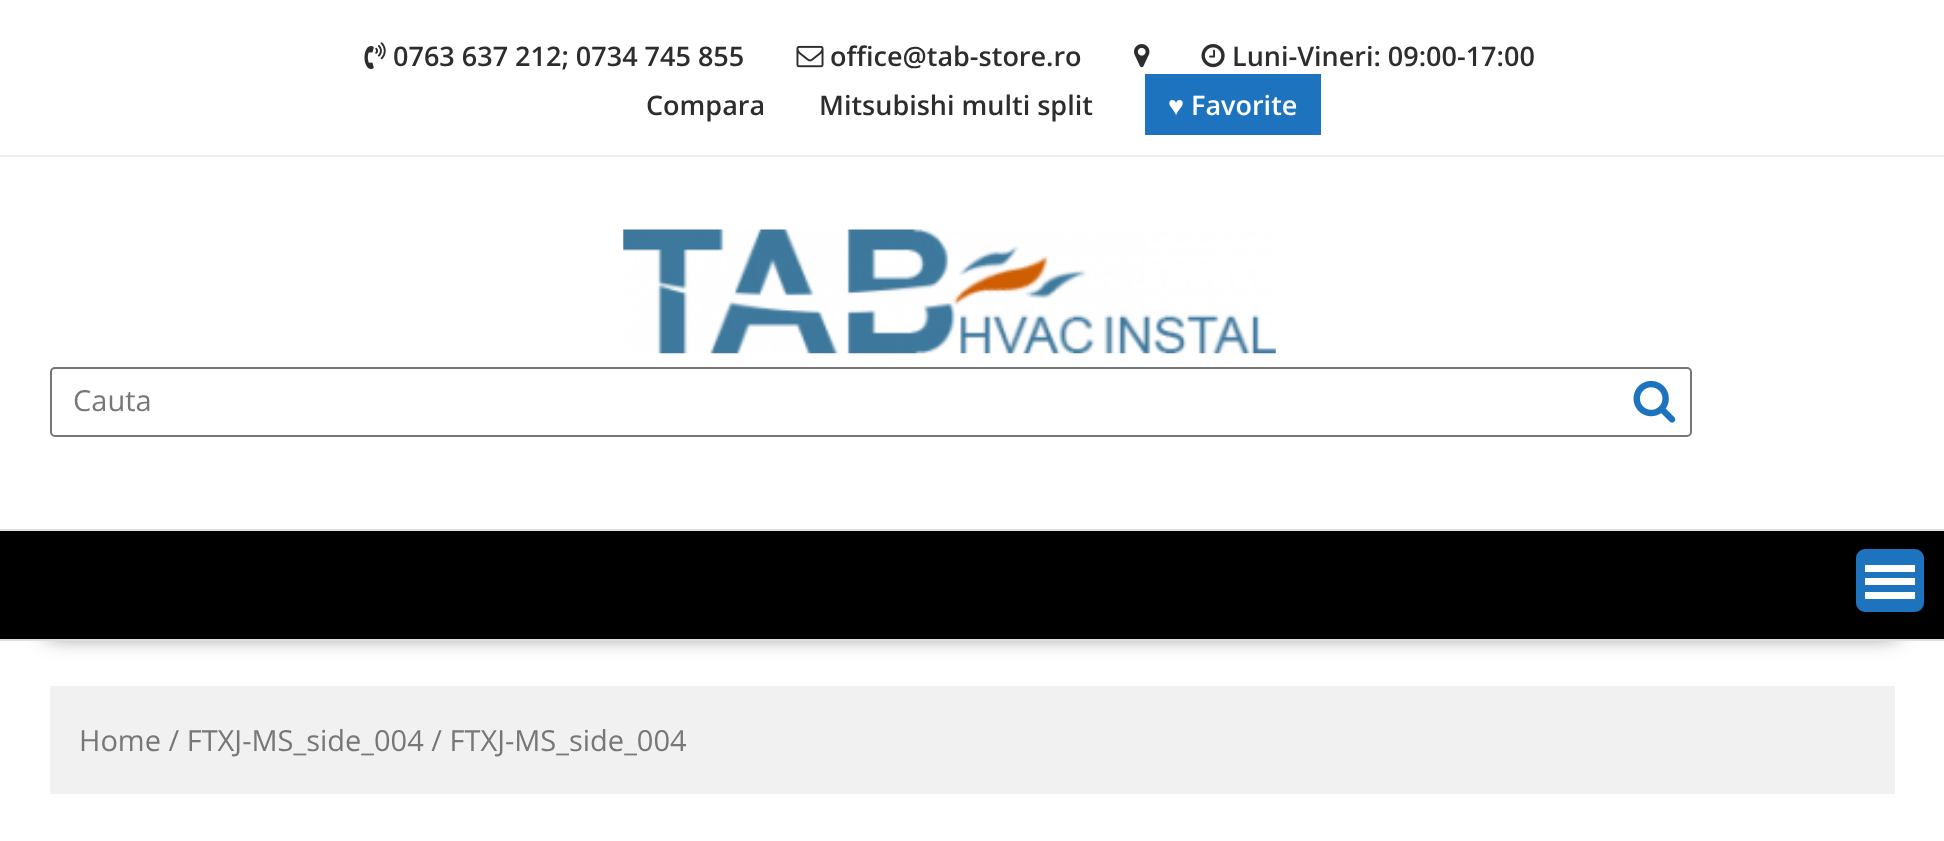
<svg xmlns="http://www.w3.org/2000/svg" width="1944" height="841">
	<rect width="100%" height="100%" fill="#FFFFFF" />
	<rect x="0" y="155" width="1944" height="2" fill="#EEEEEE" />
	<image x="364" y="42" width="22" height="28" href="assets/img1.png" />
	<text x="393" y="66" font-family="Open Sans" font-size="27" font-weight="600" fill="#2D2D2D">0763 637 212; 0734 745 855</text>
	<image x="796" y="45" width="28" height="23" href="assets/img2.png" />
	<text x="830" y="66" font-family="Open Sans" font-size="27" font-weight="600" fill="#2D2D2D">office@tab-store.ro</text>
	<image x="1134" y="44" width="16" height="24" href="assets/img3.png" />
	<image x="1201" y="44" width="24" height="24" href="assets/img4.png" />
	<g font-family="Open Sans" font-size="27" font-weight="600" fill="#2D2D2D">
		<text x="1232" y="66">Luni-Vineri: 09:00-17:00</text>
		<text x="646" y="115">Compara</text>
		<text x="819" y="115">Mitsubishi multi split</text>
	</g>
	<rect x="1145" y="74" width="176" height="61" fill="#1E73BE" />
	<text x="1168" y="115" font-family="Liberation Sans" font-size="27" font-weight="700" fill="#FFFFFF">♥</text>
	<text x="1191" y="115" font-family="Open Sans" font-size="27" font-weight="600" fill="#FFFFFF">Favorite</text>
	<image x="623" y="229" width="653" height="125" href="assets/img5.png" />
	<rect x="51" y="368" width="1640" height="68" rx="4" fill="none" stroke="#767676" stroke-width="2" />
	<text x="73" y="411" font-family="Open Sans" font-size="29" fill="#777777">Cauta</text>
	<image x="1633" y="380" width="43" height="43" href="assets/img6.png" />
	<rect x="47" y="614" width="1850" height="18" fill="#000000" fill-opacity="0.75" filter="blur(12.5px)" />
	<rect x="0" y="531" width="1944" height="108" fill="#000000" />
	<rect x="0" y="529" width="1944" height="2" fill="#DEDEDE" />
	<rect x="0" y="639" width="1944" height="2" fill="#DEDEDE" />
	<rect x="1857" y="550" width="66" height="61" rx="8" fill="#1E73BE" stroke="#1E73BE" stroke-width="2" />
	<rect x="1865" y="592" width="50" height="7" fill="#FFFFFF" />
	<rect x="1865" y="578" width="50" height="7" fill="#FFFFFF" />
	<rect x="1865" y="565" width="50" height="7" fill="#FFFFFF" />
	<rect x="50" y="686" width="1845" height="108" fill="#F1F1F1" />
	<text x="79" y="751" font-family="Open Sans" font-size="29" fill="#777777">Home / FTXJ-MS_side_004 / FTXJ-MS_side_004</text>
</svg>
